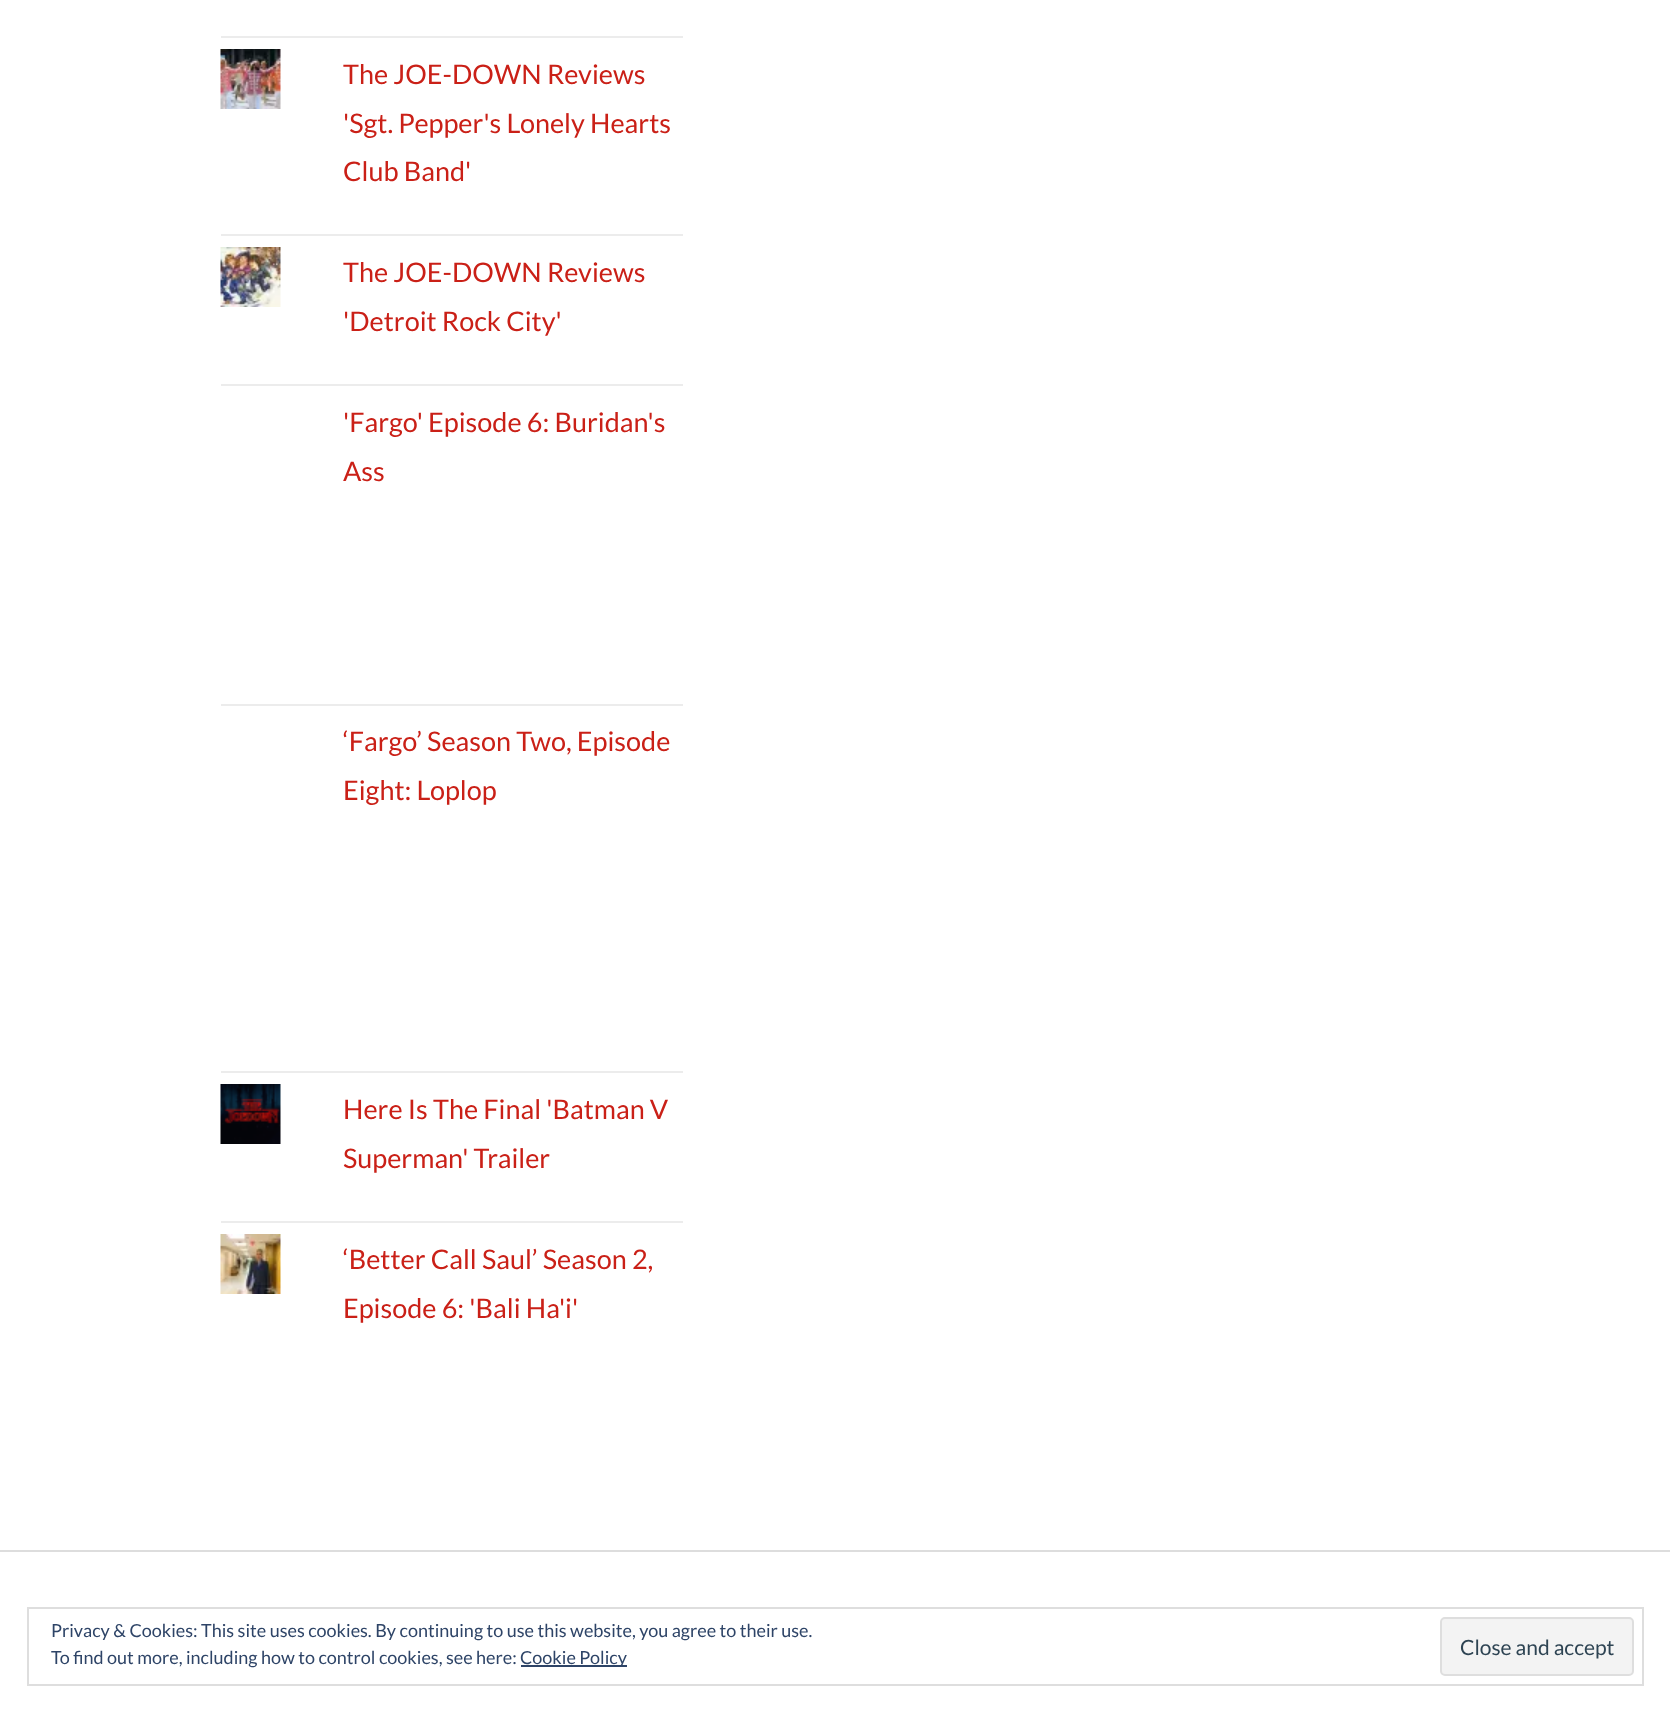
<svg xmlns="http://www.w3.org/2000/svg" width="1670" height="1713">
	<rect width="100%" height="100%" fill="#FFFFFF" />
	<rect x="221" y="36" width="462" height="2" fill="#ECECEC" />
	<image x="220" y="49" width="61" height="60" href="assets/img1.png" />
	<g font-family="Lato" font-size="27" fill="#CA2017">
		<text x="343" y="84">The JOE-DOWN Reviews</text>
		<text x="343" y="133">'Sgt. Pepper's Lonely Hearts</text>
		<text x="343" y="181">Club Band'</text>
	</g>
	<rect x="221" y="234" width="462" height="2" fill="#ECECEC" />
	<image x="220" y="247" width="61" height="60" href="assets/img2.png" />
	<g font-family="Lato" font-size="27" fill="#CA2017">
		<text x="343" y="282">The JOE-DOWN Reviews</text>
		<text x="343" y="331">'Detroit Rock City'</text>
	</g>
	<rect x="221" y="384" width="462" height="2" fill="#ECECEC" />
	<g font-family="Lato" font-size="27" fill="#CA2017">
		<text x="343" y="432">'Fargo' Episode 6: Buridan's</text>
		<text x="343" y="481">Ass</text>
	</g>
	<rect x="221" y="704" width="462" height="2" fill="#ECECEC" />
	<g font-family="Lato" font-size="27" fill="#CA2017">
		<text x="343" y="751">‘Fargo’ Season Two, Episode</text>
		<text x="343" y="800">Eight: Loplop</text>
	</g>
	<rect x="221" y="1071" width="462" height="2" fill="#ECECEC" />
	<image x="220" y="1084" width="61" height="60" href="assets/img3.png" />
	<g font-family="Lato" font-size="27" fill="#CA2017">
		<text x="343" y="1119">Here Is The Final 'Batman V</text>
		<text x="343" y="1168">Superman' Trailer</text>
	</g>
	<rect x="221" y="1221" width="462" height="2" fill="#ECECEC" />
	<image x="220" y="1234" width="61" height="60" href="assets/img4.png" />
	<g font-family="Lato" font-size="27" fill="#CA2017">
		<text x="343" y="1269">‘Better Call Saul’ Season 2,</text>
		<text x="343" y="1318">Episode 6: 'Bali Ha'i'</text>
	</g>
	<rect x="0" y="1550" width="1670" height="2" fill="#DDDDDD" />
	<rect x="28" y="1608" width="1615" height="77" fill="none" stroke="#DEDEDE" stroke-width="2" />
	<g font-family="Lato" font-size="18" fill="#2E4467">
		<text x="51" y="1637">Privacy &amp; Cookies: This site uses cookies. By continuing to use this website, you agree to their use.</text>
		<text x="51" y="1664">To find out more, including how to control cookies, see here:</text>
	</g>
	<rect x="521" y="1665" width="106" height="2" fill="#2E4467" />
	<text x="520" y="1664" font-family="Lato" font-size="18" fill="#2E4467">Cookie Policy</text>
	<rect x="1441" y="1618" width="192" height="57" rx="4" fill="#F3F3F3" stroke="#DEDEDE" stroke-width="2" />
	<text x="1460" y="1655" font-family="Lato" font-size="21" fill="#2E4453">Close and accept</text>
</svg>
